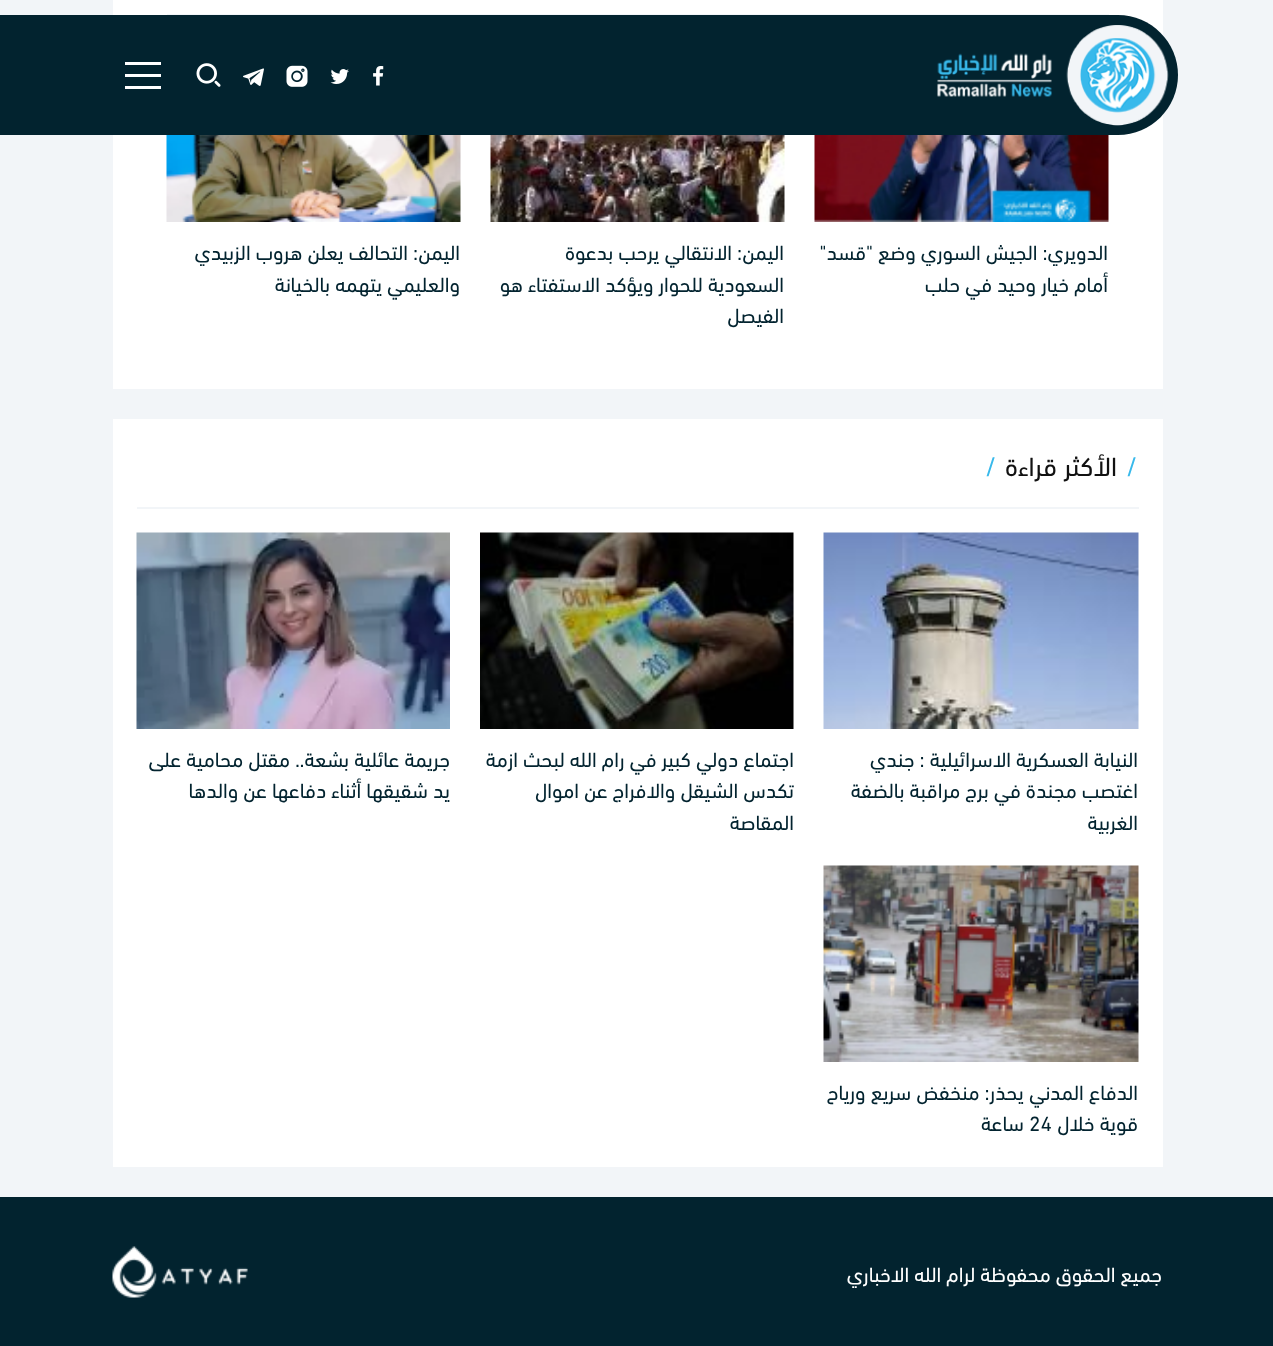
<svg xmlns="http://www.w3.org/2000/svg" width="1273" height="1346">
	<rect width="100%" height="100%" fill="#F2F5F8" />
	<rect x="0" y="15" width="98" height="120" fill="#02232F" />
	<rect x="113" y="0" width="1050" height="389" fill="#FFFFFF" />
	<path d="M98 15H1118C1151 15 1178 42 1178 75C1178 108 1151 135 1118 135H98Z" fill="#02232F" />
	<image x="937" y="25" width="232" height="101" href="assets/img1.png" />
	<image x="373" y="66" width="11" height="20" href="assets/img2.png" />
	<image x="330" y="69" width="19" height="15" href="assets/img3.png" />
	<image x="286" y="65" width="22" height="22" href="assets/img4.png" />
	<image x="243" y="68" width="21" height="18" href="assets/img5.png" />
	<image x="196" y="63" width="25" height="24" href="assets/img6.png" />
	<rect x="125" y="74" width="36" height="3" fill="#FFFFFF" />
	<rect x="125" y="62" width="36" height="3" fill="#FFFFFF" />
	<rect x="125" y="86" width="36" height="3" fill="#FFFFFF" />
	<rect x="167" y="14" width="942" height="1" fill="#F2F5F8" />
	<image x="814" y="135" width="295" height="87" href="assets/img7.png" />
	<g font-family="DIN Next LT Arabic" font-size="21" direction="rtl" fill="#02232F">
		<text x="1108" y="260">الدويري: الجيش السوري وضع "قسد"</text>
		<text x="1108" y="292">أمام خيار وحيد في حلب</text>
	</g>
	<image x="490" y="135" width="295" height="87" href="assets/img8.png" />
	<g font-family="DIN Next LT Arabic" font-size="21" direction="rtl" fill="#02232F">
		<text x="784" y="260">اليمن: الانتقالي يرحب بدعوة</text>
		<text x="784" y="292">السعودية للحوار ويؤكد الاستفتاء هو</text>
		<text x="784" y="323">الفيصل</text>
	</g>
	<image x="166" y="135" width="295" height="87" href="assets/img9.png" />
	<g font-family="DIN Next LT Arabic" font-size="21" direction="rtl" fill="#02232F">
		<text x="460" y="260">اليمن: التحالف يعلن هروب الزبيدي</text>
		<text x="460" y="292">والعليمي يتهمه بالخيانة</text>
	</g>
	<rect x="113" y="419" width="1050" height="748" fill="#FFFFFF" />
	<rect x="137" y="507" width="1002" height="2" fill="#F2F5F8" />
	<text x="1126" y="476" font-family="DIN Next LT Arabic" font-size="27" fill="#38B9EB">/</text>
	<text x="1117" y="476" font-family="DIN Next LT Arabic" font-size="27" direction="rtl" fill="#111111">الأكثر قراءة</text>
	<text x="985" y="476" font-family="DIN Next LT Arabic" font-size="27" fill="#38B9EB">/</text>
	<image x="823" y="532" width="316" height="197" href="assets/img10.png" />
	<g font-family="DIN Next LT Arabic" font-size="21" direction="rtl" fill="#02232F">
		<text x="1138" y="767">النيابة العسكرية الاسرائيلية : جندي</text>
		<text x="1138" y="798">اغتصب مجندة في برج مراقبة بالضفة</text>
		<text x="1138" y="830">الغربية</text>
	</g>
	<image x="480" y="532" width="314" height="197" href="assets/img11.png" />
	<g font-family="DIN Next LT Arabic" font-size="21" direction="rtl" fill="#02232F">
		<text x="794" y="767">اجتماع دولي كبير في رام الله لبحث ازمة</text>
		<text x="794" y="798">تكدس الشيقل والافراج عن اموال</text>
		<text x="794" y="830">المقاصة</text>
	</g>
	<image x="136" y="532" width="314" height="197" href="assets/img12.png" />
	<g font-family="DIN Next LT Arabic" font-size="21" direction="rtl" fill="#02232F">
		<text x="450" y="767">جريمة عائلية بشعة.. مقتل محامية على</text>
		<text x="450" y="798">يد شقيقها أثناء دفاعها عن والدها</text>
	</g>
	<image x="823" y="865" width="316" height="197" href="assets/img13.png" />
	<g font-family="DIN Next LT Arabic" font-size="21" direction="rtl" fill="#02232F">
		<text x="1138" y="1100">الدفاع المدني يحذر: منخفض سريع ورياح</text>
		<text x="1138" y="1131">قوية خلال</text>
	</g>
	<text x="1029" y="1131" font-family="DIN Next LT Arabic" font-size="21" fill="#02232F">24</text>
	<text x="1024" y="1131" font-family="DIN Next LT Arabic" font-size="21" direction="rtl" fill="#02232F">ساعة</text>
	<rect x="0" y="1197" width="1273" height="149" fill="#02232F" />
	<text x="1162" y="1282" font-family="DIN Next LT Arabic" font-size="21" direction="rtl" fill="#FFFFFF">جميع الحقوق محفوظة لرام الله الاخباري</text>
	<image x="112" y="1246" width="136" height="52" href="assets/img14.png" />
</svg>
